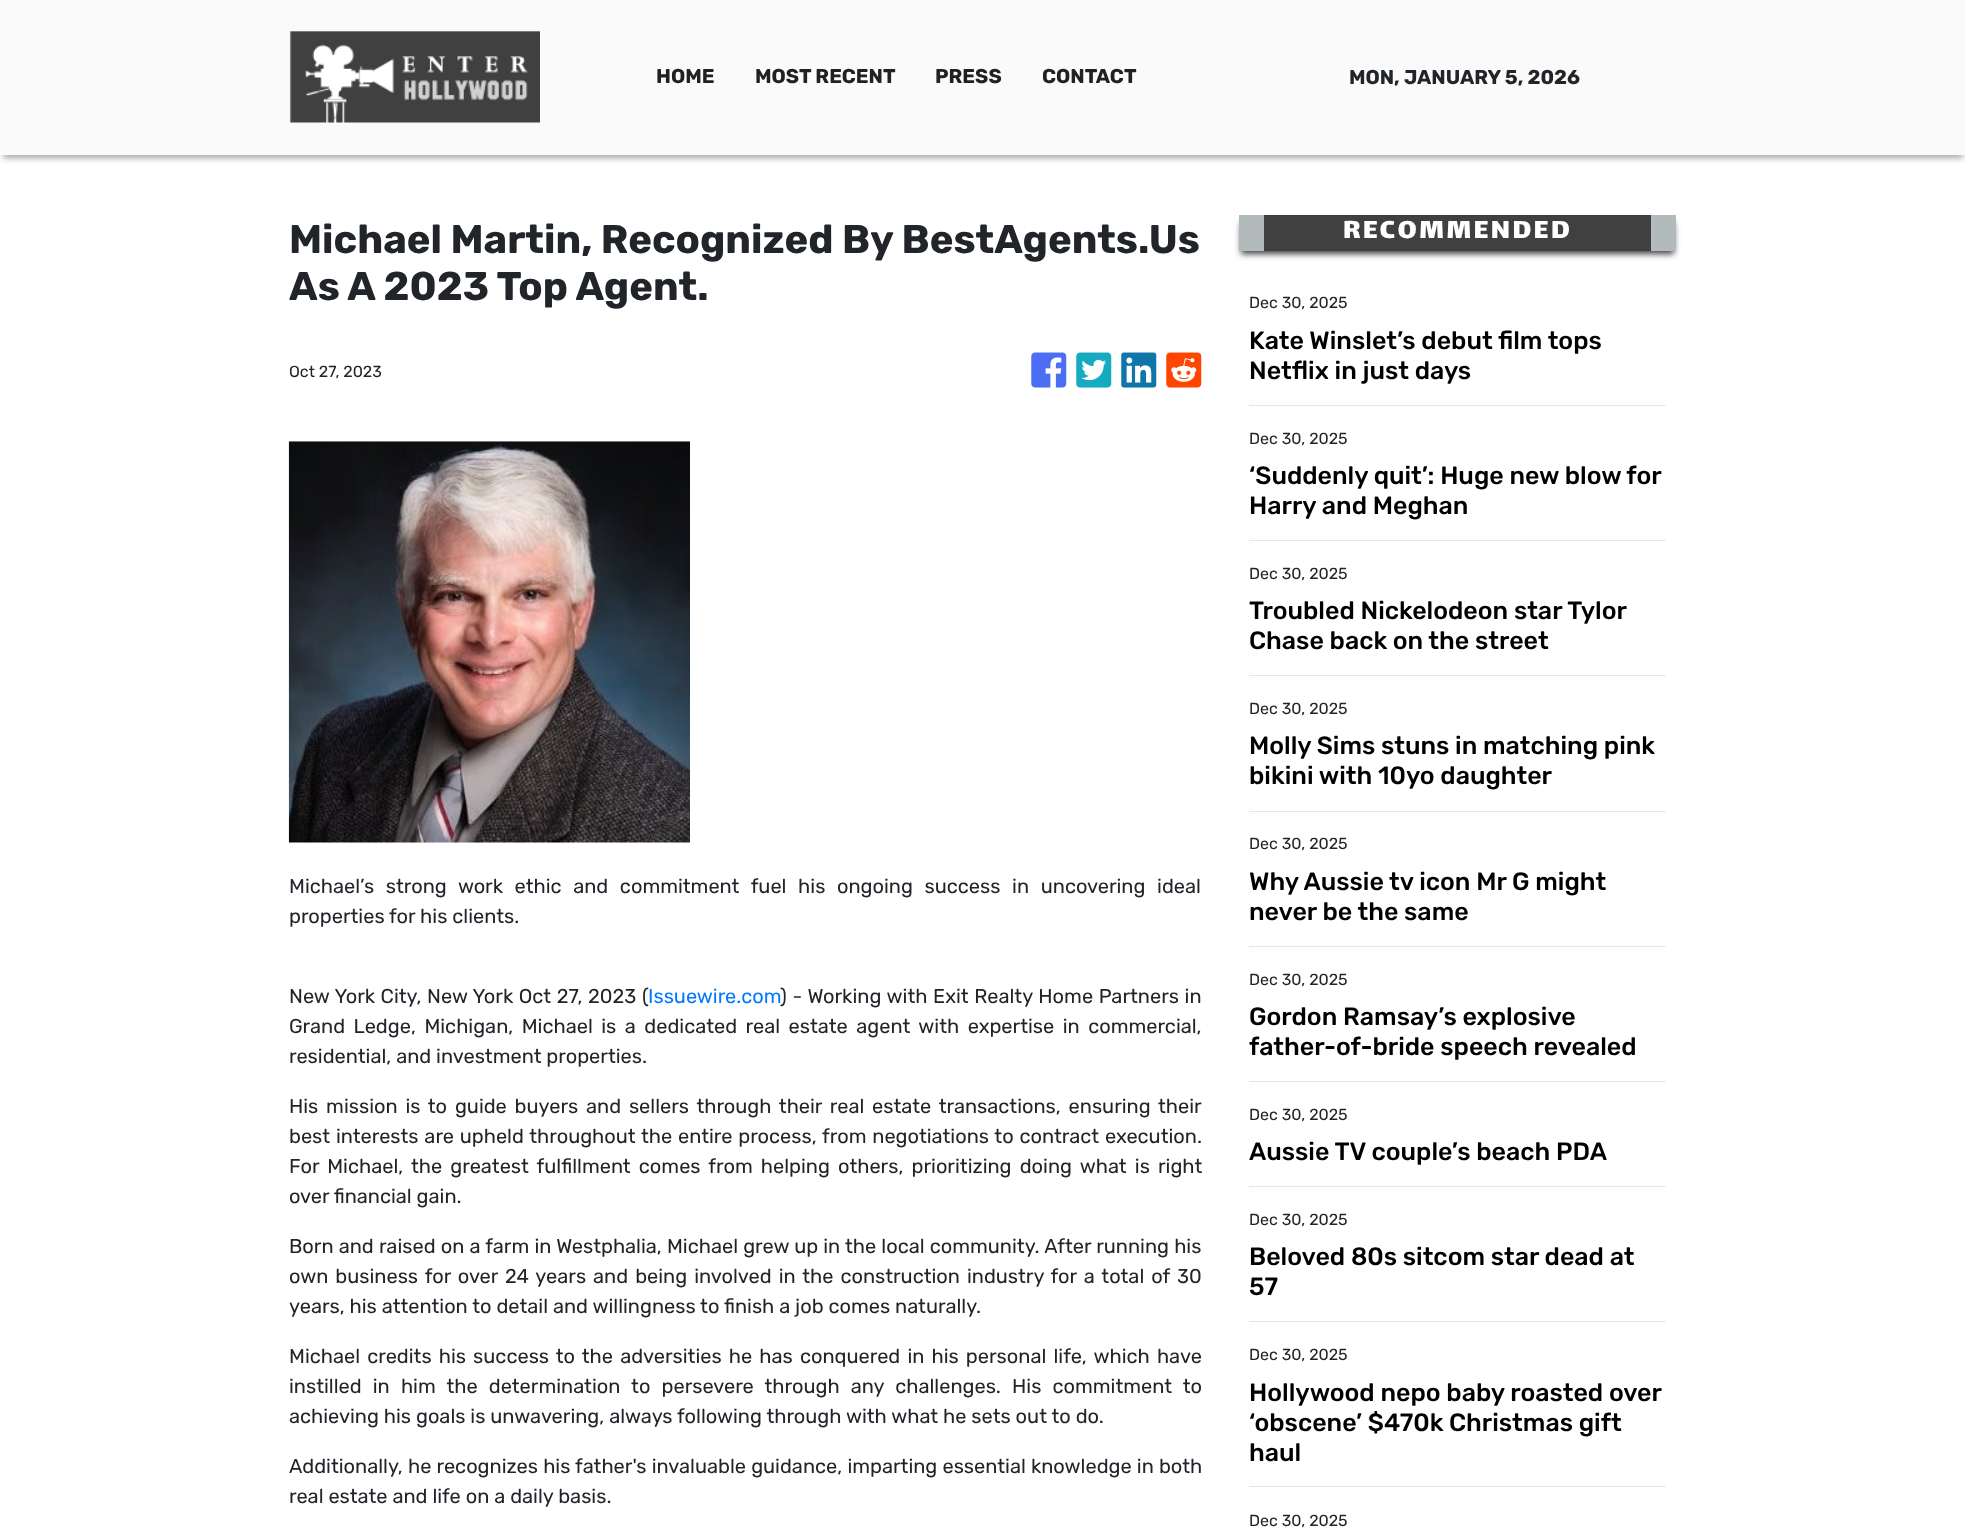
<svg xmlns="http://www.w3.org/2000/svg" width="1965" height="1528">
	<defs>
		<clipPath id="clip1"><path d="M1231 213H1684V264H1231ZM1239 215H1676V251H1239Z" clip-rule="evenodd" /></clipPath>
	</defs>
	<rect width="100%" height="100%" fill="#FFFFFF" />
	<rect x="3" y="8" width="1960" height="150" fill="#000000" fill-opacity="0.35" filter="blur(3px)" />
	<rect x="0" y="0" width="1965" height="155" fill="#FAFAFA" />
	<image x="289" y="31" width="251" height="92" href="assets/img1.png" />
	<g font-family="Rubik" font-size="20" font-weight="700" fill="#212121">
		<text x="656" y="83">HOME</text>
		<text x="755" y="83">MOST RECENT</text>
		<text x="935" y="83">PRESS</text>
		<text x="1042" y="83">CONTACT</text>
	</g>
	<text x="1349" y="84" font-family="Rubik" font-size="20" font-weight="700" fill="#212529">MON, JANUARY 5, 2026</text>
	<g font-family="Rubik" font-size="40" font-weight="700" fill="#212529">
		<text x="289" y="253">Michael Martin, Recognized By BestAgents.Us</text>
		<text x="289" y="300">As A 2023 Top Agent.</text>
	</g>
	<text x="289" y="377" font-family="Rubik" font-size="16" fill="#212529">Oct 27, 2023</text>
	<image x="1031" y="352" width="36" height="36" href="assets/img2.png" />
	<image x="1076" y="352" width="36" height="36" href="assets/img3.png" />
	<image x="1121" y="352" width="36" height="36" href="assets/img4.png" />
	<image x="1166" y="352" width="36" height="36" href="assets/img5.png" />
	<image x="288" y="441" width="402" height="402" href="assets/img6.png" />
	<g font-family="Rubik" font-size="20" fill="#212529">
		<text x="289" y="893" word-spacing="6.75">Michael’s strong work ethic and commitment fuel his ongoing success in uncovering ideal</text>
		<text x="289" y="923">properties for his clients.</text>
		<text x="289" y="1003" word-spacing="0.75">New York City, New York Oct 27, 2023 (</text>
	</g>
	<text x="648" y="1003" font-family="Rubik" font-size="20" fill="#007BFF">Issuewire.com</text>
	<g font-family="Rubik" font-size="20" fill="#212529">
		<text x="780" y="1003" word-spacing="0.75">) - Working with Exit Realty Home Partners in</text>
		<text x="289" y="1033" word-spacing="3.6">Grand Ledge, Michigan, Michael is a dedicated real estate agent with expertise in commercial,</text>
		<text x="289" y="1063">residential, and investment properties.</text>
		<text x="289" y="1113" word-spacing="2.9">His mission is to guide buyers and sellers through their real estate transactions, ensuring their</text>
		<text x="289" y="1143" word-spacing="0.9">best interests are upheld throughout the entire process, from negotiations to contract execution.</text>
		<text x="289" y="1173" word-spacing="3.25">For Michael, the greatest fulfillment comes from helping others, prioritizing doing what is right</text>
		<text x="289" y="1203">over financial gain.</text>
		<text x="289" y="1253" word-spacing="0.25">Born and raised on a farm in Westphalia, Michael grew up in the local community. After running his</text>
		<text x="289" y="1283" word-spacing="2.1">own business for over 24 years and being involved in the construction industry for a total of 30</text>
		<text x="289" y="1313">years, his attention to detail and willingness to finish a job comes naturally.</text>
		<text x="289" y="1363" word-spacing="2.25">Michael credits his success to the adversities he has conquered in his personal life, which have</text>
		<text x="289" y="1393" word-spacing="6.25">instilled in him the determination to persevere through any challenges. His commitment to</text>
		<text x="289" y="1423">achieving his goals is unwavering, always following through with what he sets out to do.</text>
		<text x="289" y="1473" word-spacing="0.25">Additionally, he recognizes his father's invaluable guidance, imparting essential knowledge in both</text>
		<text x="289" y="1503">real estate and life on a daily basis.</text>
	</g>
	<rect x="1264" y="215" width="387" height="36" fill="#404041" />
	<rect x="1651" y="215" width="25" height="36" fill="#B2BABB" />
	<rect x="1239" y="215" width="25" height="36" fill="#B2BABB" />
	<g clip-path="url(#clip1)">
		<rect x="1241" y="223" width="433" height="31" fill="#404041" filter="blur(3px)" />
	</g>
	<text x="1343" y="238" font-family="Lalezar" font-size="30" letter-spacing="2.5" fill="#FFFFFF">RECOMMENDED</text>
	<text x="1249" y="308" font-family="Rubik" font-size="16" fill="#212529">Dec 30, 2025</text>
	<g font-family="Rubik" font-size="25" font-weight="500" fill="#000000">
		<text x="1249" y="349">Kate Winslet’s debut film tops</text>
		<text x="1249" y="379">Netflix in just days</text>
	</g>
	<rect x="1249" y="405" width="417" height="1" fill="#E6E6E6" />
	<text x="1249" y="444" font-family="Rubik" font-size="16" fill="#212529">Dec 30, 2025</text>
	<g font-family="Rubik" font-size="25" font-weight="500" fill="#000000">
		<text x="1249" y="484">‘Suddenly quit’: Huge new blow for</text>
		<text x="1249" y="514">Harry and Meghan</text>
	</g>
	<rect x="1249" y="540" width="417" height="1" fill="#E6E6E6" />
	<text x="1249" y="579" font-family="Rubik" font-size="16" fill="#212529">Dec 30, 2025</text>
	<g font-family="Rubik" font-size="25" font-weight="500" fill="#000000">
		<text x="1249" y="619">Troubled Nickelodeon star Tylor</text>
		<text x="1249" y="649">Chase back on the street</text>
	</g>
	<rect x="1249" y="675" width="417" height="1" fill="#E6E6E6" />
	<text x="1249" y="714" font-family="Rubik" font-size="16" fill="#212529">Dec 30, 2025</text>
	<g font-family="Rubik" font-size="25" font-weight="500" fill="#000000">
		<text x="1249" y="754">Molly Sims stuns in matching pink</text>
		<text x="1249" y="784">bikini with 10yo daughter</text>
	</g>
	<rect x="1249" y="811" width="417" height="1" fill="#E6E6E6" />
	<text x="1249" y="849" font-family="Rubik" font-size="16" fill="#212529">Dec 30, 2025</text>
	<g font-family="Rubik" font-size="25" font-weight="500" fill="#000000">
		<text x="1249" y="890">Why Aussie tv icon Mr G might</text>
		<text x="1249" y="920">never be the same</text>
	</g>
	<rect x="1249" y="946" width="417" height="1" fill="#E6E6E6" />
	<text x="1249" y="985" font-family="Rubik" font-size="16" fill="#212529">Dec 30, 2025</text>
	<g font-family="Rubik" font-size="25" font-weight="500" fill="#000000">
		<text x="1249" y="1025">Gordon Ramsay’s explosive</text>
		<text x="1249" y="1055">father-of-bride speech revealed</text>
	</g>
	<rect x="1249" y="1081" width="417" height="1" fill="#E6E6E6" />
	<text x="1249" y="1120" font-family="Rubik" font-size="16" fill="#212529">Dec 30, 2025</text>
	<text x="1249" y="1160" font-family="Rubik" font-size="25" font-weight="500" fill="#000000">Aussie TV couple’s beach PDA</text>
	<rect x="1249" y="1186" width="417" height="1" fill="#E6E6E6" />
	<text x="1249" y="1225" font-family="Rubik" font-size="16" fill="#212529">Dec 30, 2025</text>
	<g font-family="Rubik" font-size="25" font-weight="500" fill="#000000">
		<text x="1249" y="1265">Beloved 80s sitcom star dead at</text>
		<text x="1249" y="1295">57</text>
	</g>
	<rect x="1249" y="1321" width="417" height="1" fill="#E6E6E6" />
	<text x="1249" y="1360" font-family="Rubik" font-size="16" fill="#212529">Dec 30, 2025</text>
	<g font-family="Rubik" font-size="25" font-weight="500" fill="#000000">
		<text x="1249" y="1401">Hollywood nepo baby roasted over</text>
		<text x="1249" y="1431">‘obscene’ $470k Christmas gift</text>
		<text x="1249" y="1461">haul</text>
	</g>
	<rect x="1249" y="1486" width="417" height="1" fill="#E6E6E6" />
	<text x="1249" y="1526" font-family="Rubik" font-size="16" fill="#212529">Dec 30, 2025</text>
</svg>
